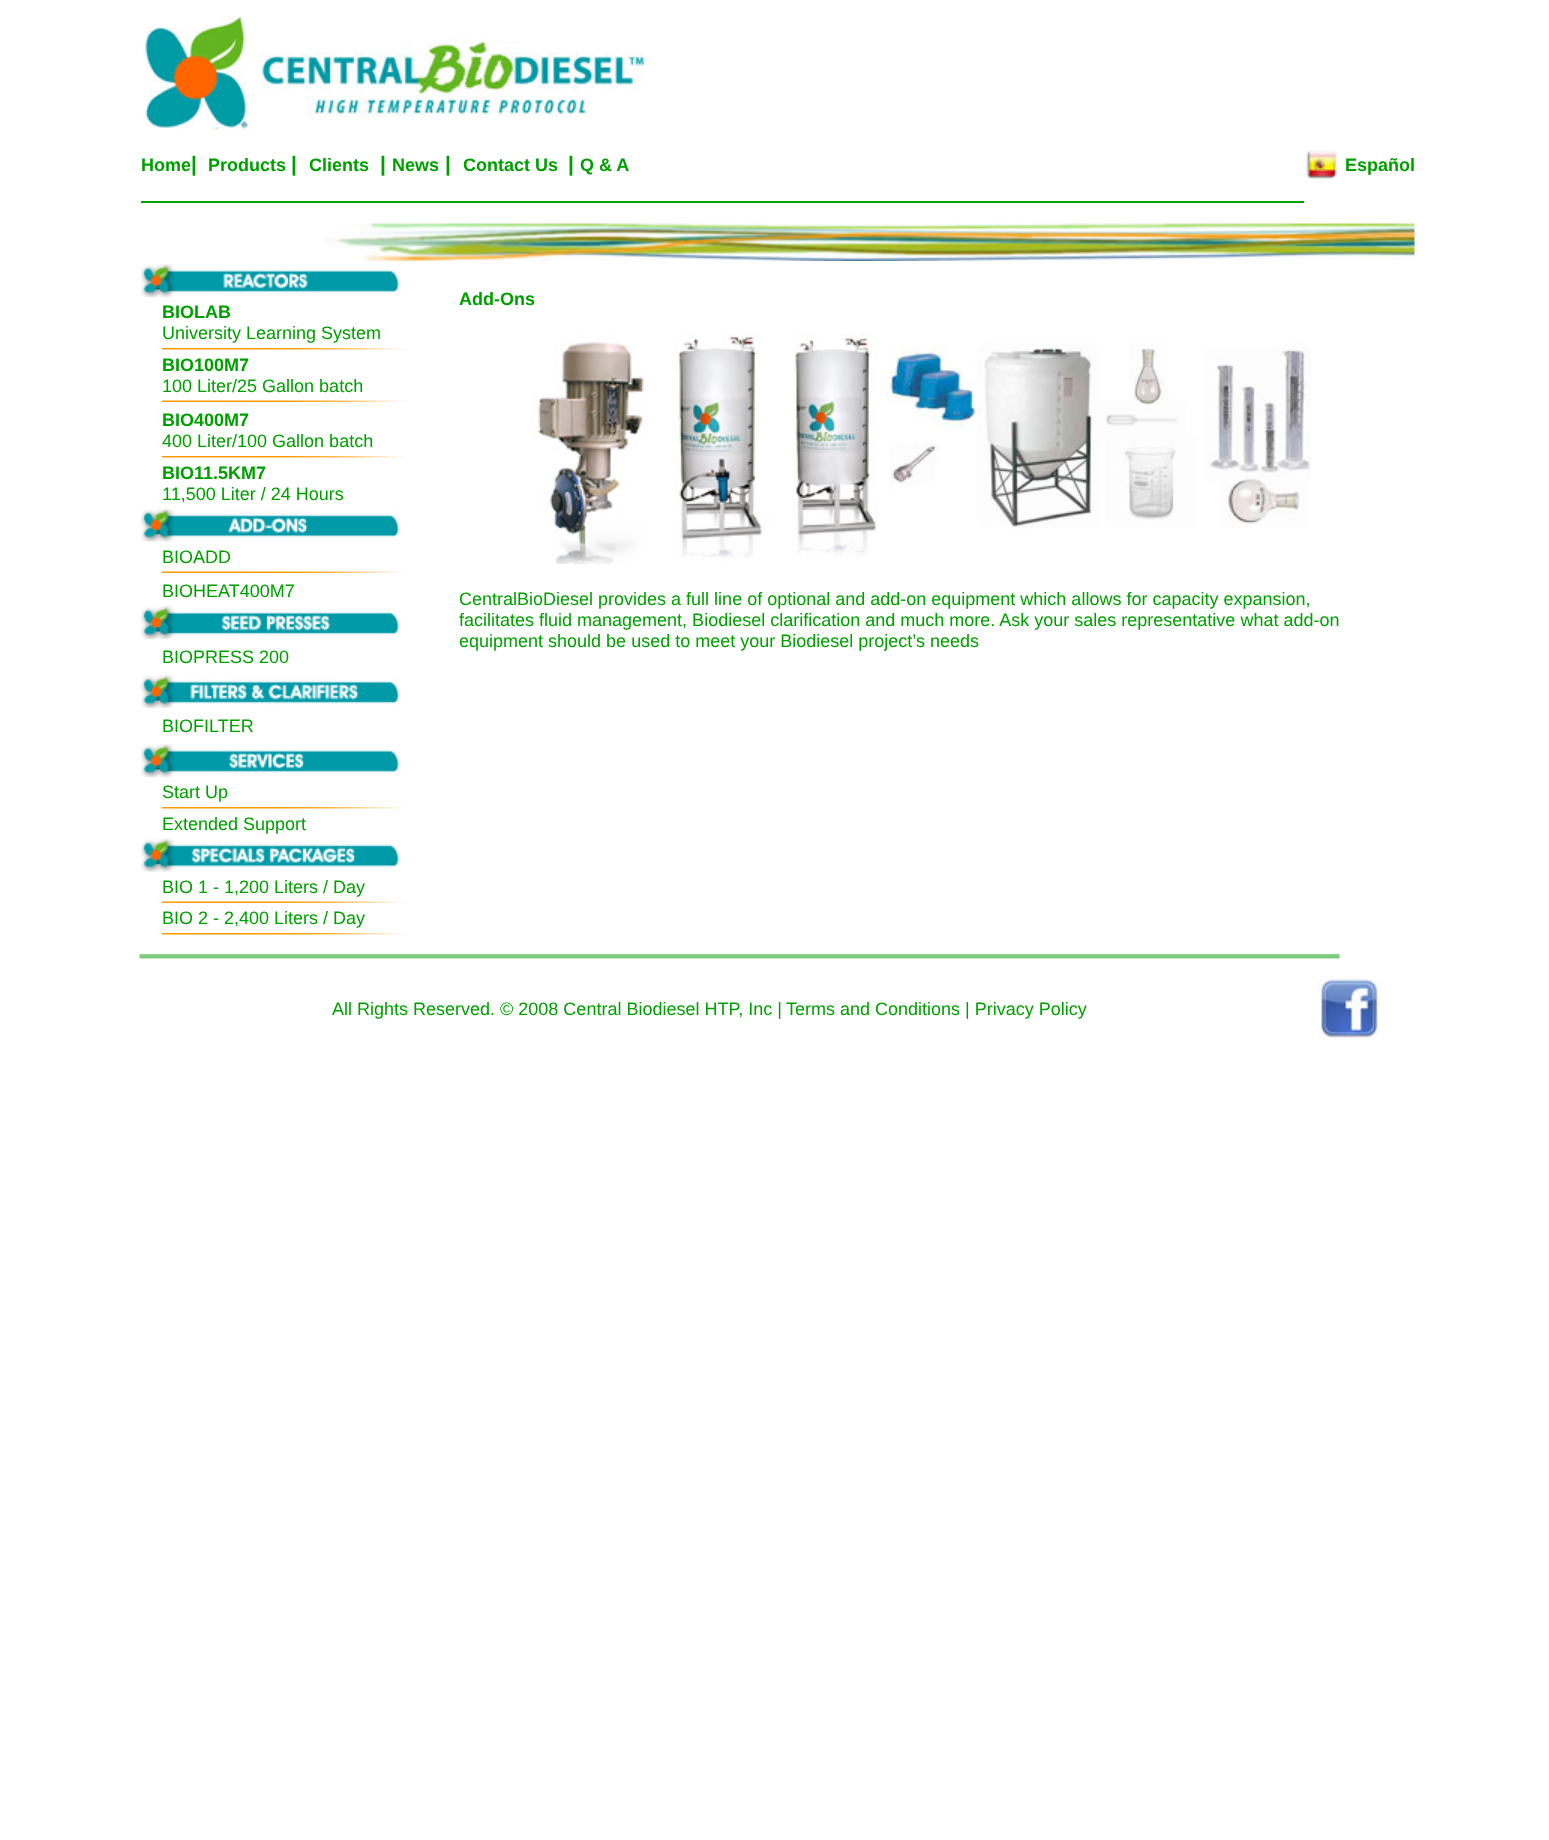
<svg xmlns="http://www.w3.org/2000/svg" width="1549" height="1840">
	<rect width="100%" height="100%" fill="#FFFFFF" />
	<image x="141" y="16" width="505" height="114" href="assets/img1.png" />
	<text x="141" y="171" font-family="Liberation Sans" font-size="18" font-weight="700" fill="#009F00">Home</text>
	<text x="191" y="171" font-family="Liberation Sans" font-size="21" font-weight="700" fill="#009F00">|</text>
	<text x="208" y="171" font-family="Liberation Sans" font-size="18" font-weight="700" fill="#009F00">Products</text>
	<text x="291" y="171" font-family="Liberation Sans" font-size="21" font-weight="700" fill="#009F00">|</text>
	<text x="309" y="171" font-family="Liberation Sans" font-size="18" font-weight="700" fill="#009F00">Clients</text>
	<text x="380" y="171" font-family="Liberation Sans" font-size="21" font-weight="700" fill="#009F00">|</text>
	<text x="392" y="171" font-family="Liberation Sans" font-size="18" font-weight="700" fill="#009F00">News</text>
	<text x="445" y="171" font-family="Liberation Sans" font-size="21" font-weight="700" fill="#009F00">|</text>
	<text x="463" y="171" font-family="Liberation Sans" font-size="18" font-weight="700" fill="#009F00">Contact Us</text>
	<text x="568" y="171" font-family="Liberation Sans" font-size="21" font-weight="700" fill="#009F00">|</text>
	<text x="580" y="171" font-family="Liberation Sans" font-size="18" font-weight="700" fill="#009F00">Q &amp; A</text>
	<image x="1306" y="150" width="31" height="30" href="assets/img2.png" />
	<text x="1345" y="171" font-family="Liberation Sans" font-size="18" font-weight="700" fill="#009F00">Español</text>
	<rect x="141" y="201" width="1163" height="2" fill="#009F00" />
	<image x="324" y="223" width="1091" height="38" href="assets/img3.png" />
	<image x="140" y="264" width="260" height="33" href="assets/img4.png" />
	<text x="162" y="318" font-family="Liberation Sans" font-size="18" font-weight="700" fill="#009F00">BIOLAB</text>
	<text x="162" y="339" font-family="Liberation Sans" font-size="18" fill="#009F00">University Learning System</text>
	<image x="162" y="348" width="244" height="2" href="assets/img5.png" />
	<text x="162" y="371" font-family="Liberation Sans" font-size="18" font-weight="700" fill="#009F00">BIO100M7</text>
	<text x="162" y="392" font-family="Liberation Sans" font-size="18" fill="#009F00">100 Liter/25 Gallon batch</text>
	<image x="162" y="400" width="244" height="2" href="assets/img6.png" />
	<text x="162" y="426" font-family="Liberation Sans" font-size="18" font-weight="700" fill="#009F00">BIO400M7</text>
	<text x="162" y="447" font-family="Liberation Sans" font-size="18" fill="#009F00">400 Liter/100 Gallon batch</text>
	<image x="162" y="456" width="244" height="2" href="assets/img5.png" />
	<text x="162" y="479" font-family="Liberation Sans" font-size="18" font-weight="700" fill="#009F00">BIO11.5KM7</text>
	<text x="162" y="500" font-family="Liberation Sans" font-size="18" fill="#009F00">11,500 Liter / 24 Hours</text>
	<image x="140" y="508" width="260" height="34" href="assets/img7.png" />
	<text x="162" y="563" font-family="Liberation Sans" font-size="18" fill="#009F00">BIOADD</text>
	<image x="162" y="571" width="244" height="2" href="assets/img6.png" />
	<text x="162" y="597" font-family="Liberation Sans" font-size="18" fill="#009F00">BIOHEAT400M7</text>
	<image x="140" y="606" width="260" height="33" href="assets/img8.png" />
	<text x="162" y="663" font-family="Liberation Sans" font-size="18" fill="#009F00">BIOPRESS 200</text>
	<image x="140" y="675" width="260" height="33" href="assets/img9.png" />
	<text x="162" y="732" font-family="Liberation Sans" font-size="18" fill="#009F00">BIOFILTER</text>
	<image x="140" y="744" width="260" height="33" href="assets/img10.png" />
	<text x="162" y="798" font-family="Liberation Sans" font-size="18" fill="#009F00">Start Up</text>
	<image x="162" y="807" width="244" height="2" href="assets/img5.png" />
	<text x="162" y="830" font-family="Liberation Sans" font-size="18" fill="#009F00">Extended Support</text>
	<image x="140" y="838" width="260" height="34" href="assets/img11.png" />
	<text x="162" y="893" font-family="Liberation Sans" font-size="18" fill="#009F00">BIO 1 - 1,200 Liters / Day</text>
	<image x="162" y="901" width="244" height="2" href="assets/img6.png" />
	<text x="162" y="924" font-family="Liberation Sans" font-size="18" fill="#009F00">BIO 2 - 2,400 Liters / Day</text>
	<image x="162" y="933" width="244" height="2" href="assets/img5.png" />
	<text x="459" y="305" font-family="Liberation Sans" font-size="18" font-weight="700" fill="#009F00">Add-Ons</text>
	<image x="530" y="333" width="781" height="231" href="assets/img12.png" />
	<g font-family="Liberation Sans" font-size="18" fill="#009F00">
		<text x="459" y="605">CentralBioDiesel provides a full line of optional and add-on equipment which allows for capacity expansion,</text>
		<text x="459" y="626">facilitates fluid management, Biodiesel clarification and much more. Ask your sales representative what add-on</text>
		<text x="459" y="647">equipment should be used to meet your Biodiesel project’s needs</text>
	</g>
	<image x="139" y="953" width="1201" height="6" href="assets/img13.png" />
	<g font-family="Liberation Sans" font-size="18" fill="#009F00">
		<text x="332" y="1015">All Rights Reserved. © 2008 Central Biodiesel HTP, Inc |</text>
		<text x="786" y="1015">Terms and Conditions | Privacy Policy</text>
	</g>
	<image x="1318" y="979" width="61" height="59" href="assets/img14.png" />
</svg>
